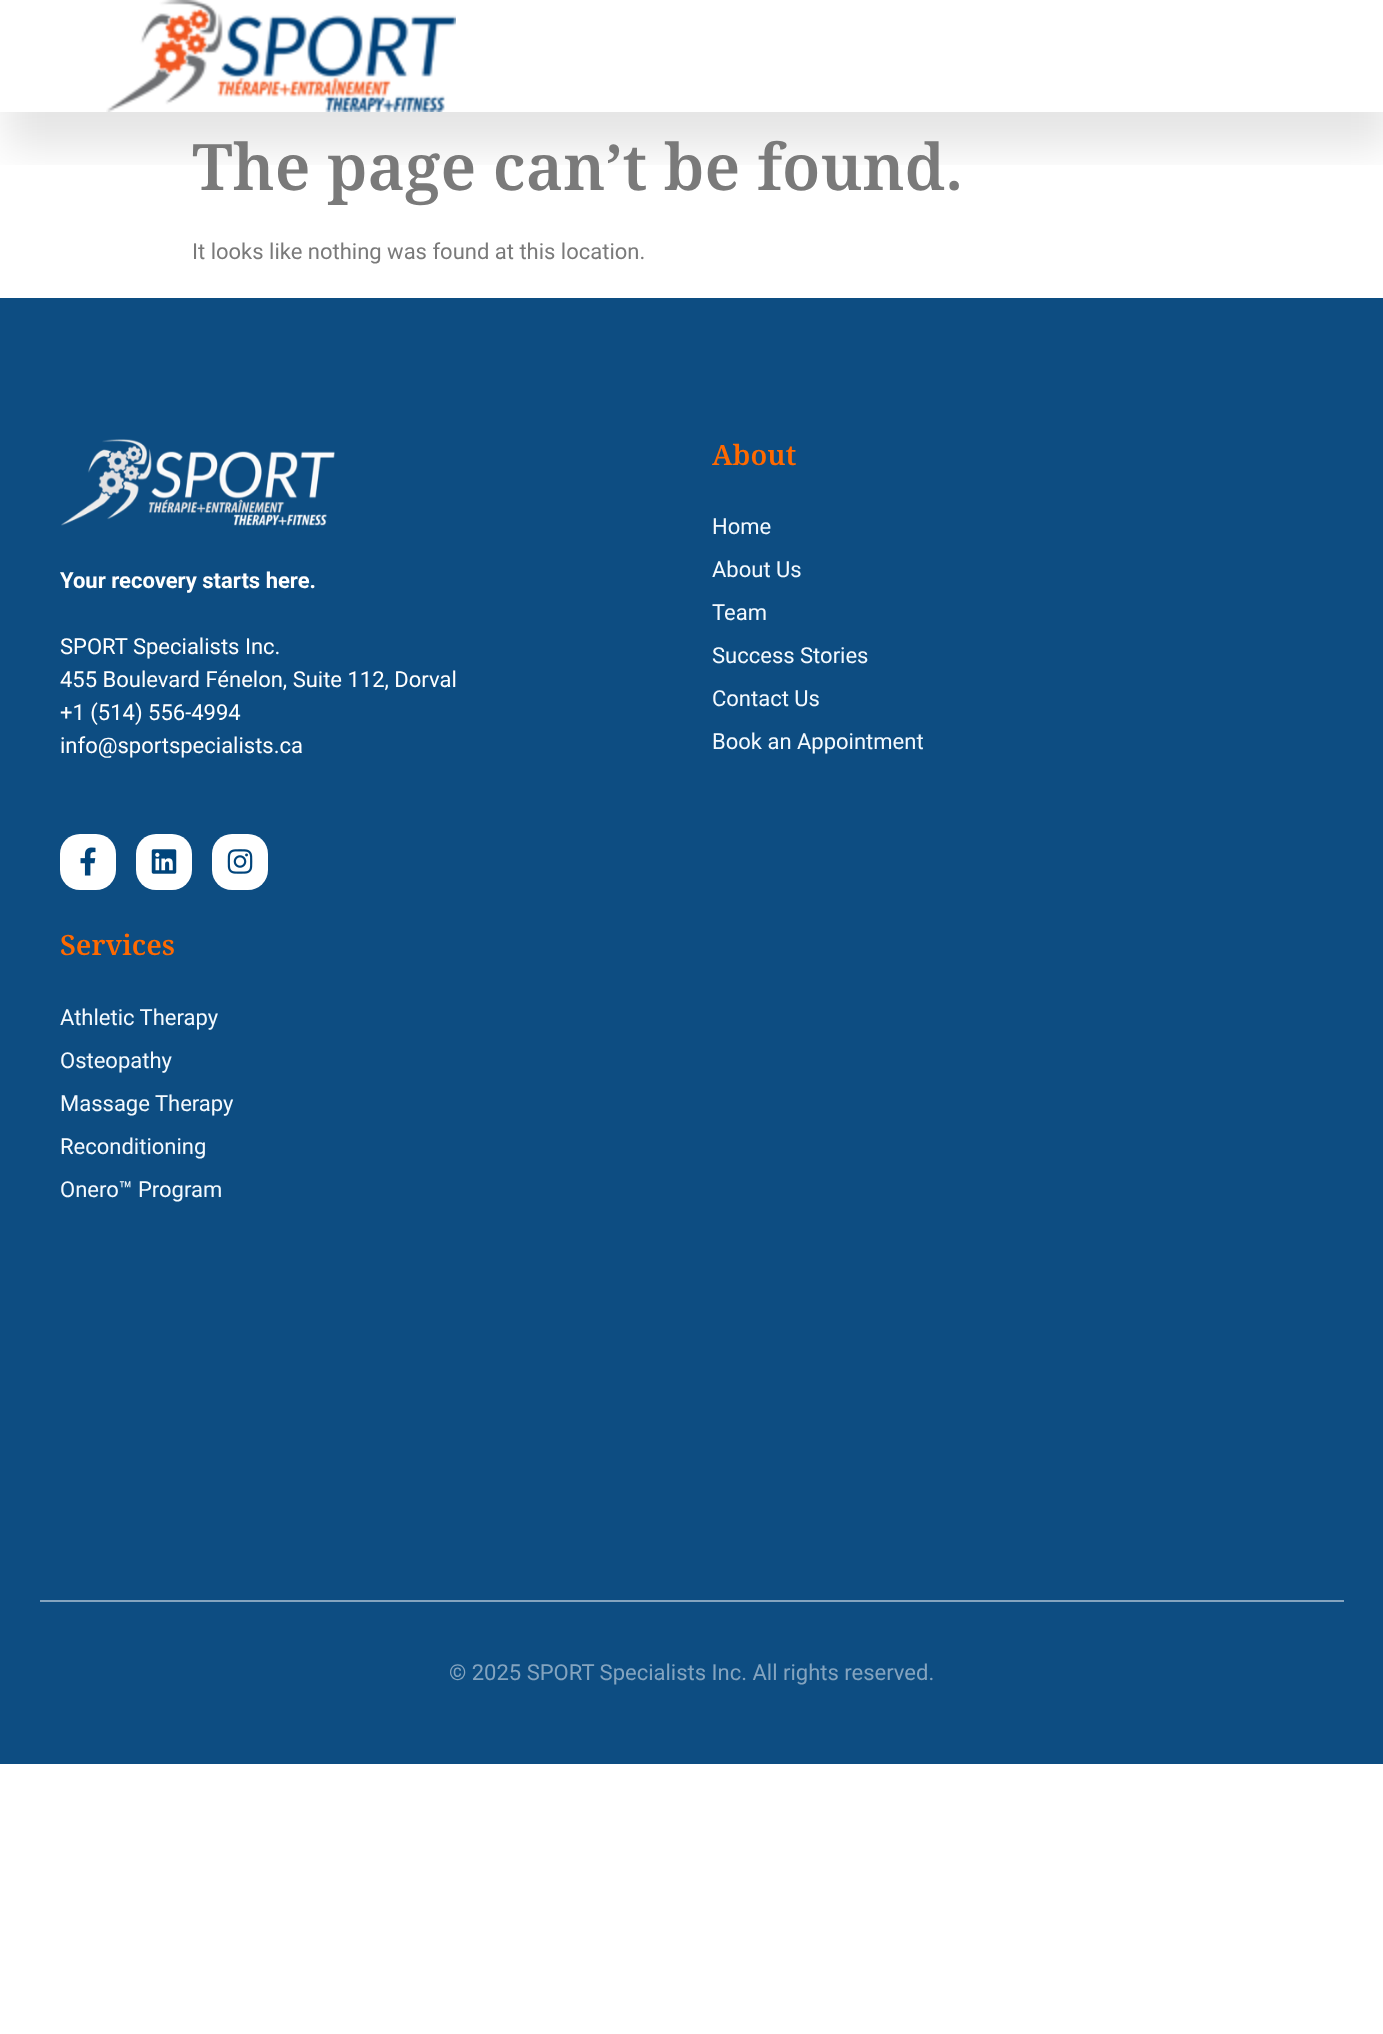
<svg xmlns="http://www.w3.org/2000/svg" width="1383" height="2034">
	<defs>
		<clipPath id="clip1"><rect x="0" y="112" width="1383" height="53" /></clipPath>
	</defs>
	<rect width="100%" height="100%" fill="#FFFFFF" />
	<g clip-path="url(#clip1)">
		<rect x="6" y="36" width="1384" height="112" fill="#000000" fill-opacity="0.1" filter="blur(20px)" />
	</g>
	<image x="106" y="0" width="350" height="112" href="assets/img1.png" />
	<text x="192" y="190" font-family="Noto Serif" font-size="64" font-weight="600" fill="#7A7A7A">The page can’t be found.</text>
	<text x="192" y="259" font-family="Roboto" font-size="22" fill="#7A7A7A">It looks like nothing was found at this location.</text>
	<rect x="0" y="298" width="1383" height="1466" fill="#0D4D82" />
	<image x="61" y="439" width="274" height="87" href="assets/img2.png" />
	<text x="60" y="588" font-family="Roboto" font-size="22" font-weight="700" fill="#FFFFFF">Your recovery starts here.</text>
	<g font-family="Roboto" font-size="22" fill="#FFFFFF">
		<text x="60" y="654">SPORT Specialists Inc.</text>
		<text x="60" y="687">455 Boulevard Fénelon, Suite 112, Dorval</text>
		<text x="60" y="720">+1 (514) 556-4994</text>
		<text x="60" y="753">info@sportspecialists.ca</text>
	</g>
	<rect x="60" y="834" width="56" height="56" rx="20" fill="#FFFFFF" />
	<image x="80" y="847" width="16" height="29" href="assets/img3.png" />
	<rect x="136" y="834" width="56" height="56" rx="20" fill="#FFFFFF" />
	<image x="151" y="849" width="26" height="25" href="assets/img4.png" />
	<rect x="212" y="834" width="56" height="56" rx="20" fill="#FFFFFF" />
	<image x="227" y="849" width="26" height="25" href="assets/img5.png" />
	<text x="712" y="465" font-family="Noto Serif" font-size="28" font-weight="600" fill="#FF6900">About</text>
	<g font-family="Roboto" font-size="22" fill="#F4FAFF">
		<text x="712" y="534">Home</text>
		<text x="712" y="577">About Us</text>
		<text x="712" y="620">Team</text>
		<text x="712" y="663">Success Stories</text>
		<text x="712" y="706">Contact Us</text>
		<text x="712" y="749">Book an Appointment</text>
	</g>
	<text x="60" y="955" font-family="Noto Serif" font-size="28" font-weight="600" fill="#FF6900">Services</text>
	<g font-family="Roboto" font-size="22" fill="#F4FAFF">
		<text x="60" y="1025">Athletic Therapy</text>
		<text x="60" y="1068">Osteopathy</text>
		<text x="60" y="1111">Massage Therapy</text>
		<text x="60" y="1154">Reconditioning</text>
		<text x="60" y="1197">Onero™ Program</text>
	</g>
	<rect x="40" y="1600" width="1304" height="2" fill="#84A4BF" />
	<text x="449" y="1680" font-family="Roboto" font-size="22" fill="#84A4BF">© 2025 SPORT Specialists Inc. All rights reserved.</text>
</svg>
